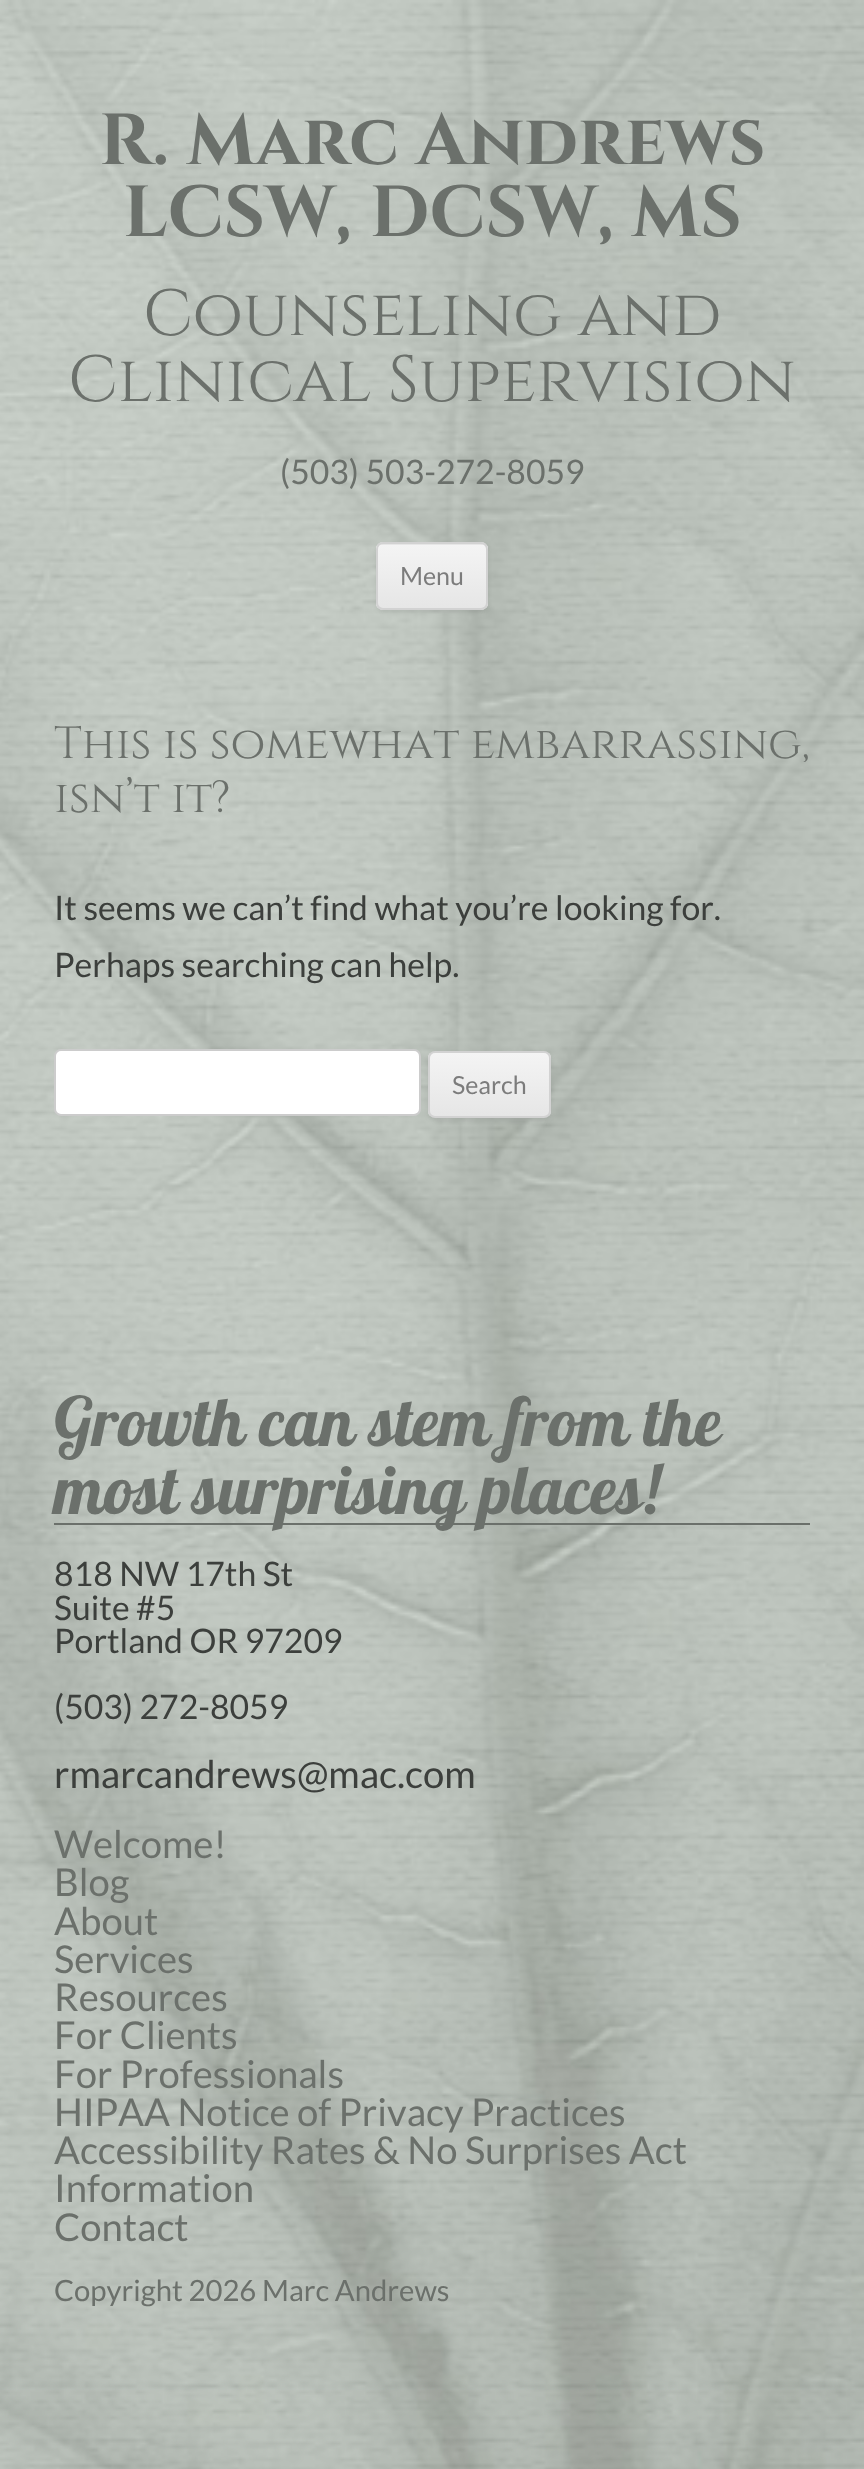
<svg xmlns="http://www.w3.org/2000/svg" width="864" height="2469">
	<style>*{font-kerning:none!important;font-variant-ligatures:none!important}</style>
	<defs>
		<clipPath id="clip1"><rect x="376" y="542" width="112" height="68" rx="7" /></clipPath>
		<linearGradient id="g1" gradientUnits="userSpaceOnUse" x1="432" y1="545" x2="432" y2="608"><stop offset="0" stop-color="#F4F4F4" /><stop offset="1" stop-color="#E6E6E6" /></linearGradient>
		<clipPath id="clip2"><rect x="428" y="1051" width="123" height="67" rx="7" /></clipPath>
		<linearGradient id="g2" gradientUnits="userSpaceOnUse" x1="489" y1="1053" x2="489" y2="1116"><stop offset="0" stop-color="#F4F4F4" /><stop offset="1" stop-color="#E6E6E6" /></linearGradient>
	</defs>
	<rect width="100%" height="100%" fill="#FFFFFF" />
	<image x="0" y="0" width="864" height="2469" href="assets/img1.png" />
	<g font-family="Cinzel" font-size="72" font-weight="700" fill="#6B706B">
		<text x="99" y="164">R. Marc Andrews</text>
		<text x="123" y="236">LCSW, DCSW, MS</text>
	</g>
	<g font-family="Cinzel" font-size="65.25" fill="#6B706B">
		<text x="143" y="335">Counseling and</text>
		<text x="68" y="401">Clinical Supervision</text>
	</g>
	<text x="280" y="484" font-family="Lato" font-size="33.75" fill="#6B706B">(503) 503-272-8059</text>
	<rect x="376" y="545" width="112" height="67" rx="7" fill="#404040" fill-opacity="0.1" filter="blur(2px)" />
	<rect x="376" y="542" width="112" height="68" rx="7" fill="#E6E6E6" />
	<g clip-path="url(#clip1)">
		<rect x="376" y="545" width="112" height="63" fill="url(#g1)" />
	</g>
	<rect x="377" y="543" width="110" height="66" rx="6" fill="none" stroke="#D2D2D2" stroke-width="2" />
	<text x="400" y="585" font-family="Lato" font-size="25" fill="#7C7C7C">Menu</text>
	<g font-family="Cinzel" font-size="45" fill="#6B706B">
		<text x="54" y="758">This is somewhat embarrassing,</text>
		<text x="54" y="812">isn’t it?</text>
	</g>
	<g font-family="Lato" font-size="33.75" fill="#3C3F3C">
		<text x="54" y="920">It seems we can’t find what you’re looking for.</text>
		<text x="54" y="977">Perhaps searching can help.</text>
	</g>
	<rect x="55" y="1050" width="365" height="65" rx="6" fill="#FFFFFF" stroke="#CCCCCC" stroke-width="2" />
	<rect x="428" y="1053" width="123" height="68" rx="7" fill="#404040" fill-opacity="0.1" filter="blur(2px)" />
	<g clip-path="url(#clip2)">
		<rect x="428" y="1053" width="123" height="63" fill="url(#g2)" />
	</g>
	<rect x="429" y="1052" width="121" height="65" rx="6" fill="none" stroke="#D2D2D2" stroke-width="2" />
	<text x="452" y="1094" font-family="Lato" font-size="25" fill="#7C7C7C">Search</text>
	<rect x="54" y="1523" width="756" height="2" fill="#6B706B" />
	<g font-family="Lobster" font-size="67.5" fill="#6B706B">
		<text x="54" y="1446">Growth can stem</text>
		<text x="505" y="1446">from the</text>
		<text x="54" y="1514">most surprising places!</text>
	</g>
	<g font-family="Lato" font-size="33.75" fill="#3C3F3C">
		<text x="54" y="1586">818 NW 17th St</text>
		<text x="54" y="1620">Suite #5</text>
		<text x="54" y="1653">Portland OR 97209</text>
		<text x="54" y="1719">(503) 272-8059</text>
	</g>
	<text x="54" y="1788" font-family="Lato" font-size="38.25" fill="#3C3F3C">rmarcandrews@mac.com</text>
	<g font-family="Lato" font-size="38.25" fill="#6B706B">
		<text x="54" y="1858">Welcome!</text>
		<text x="54" y="1896">Blog</text>
		<text x="54" y="1935">About</text>
		<text x="54" y="1973">Services</text>
		<text x="54" y="2011">Resources</text>
		<text x="54" y="2049">For Clients</text>
		<text x="54" y="2088">For Professionals</text>
		<text x="54" y="2126">HIPAA Notice of Privacy Practices</text>
		<text x="54" y="2164">Accessibility Rates &amp; No Surprises Act</text>
		<text x="54" y="2202">Information</text>
		<text x="54" y="2241">Contact</text>
	</g>
	<text x="54" y="2301" font-family="Lato" font-size="29.25" fill="#6B706B">Copyright 2026 Marc Andrews</text>
</svg>
